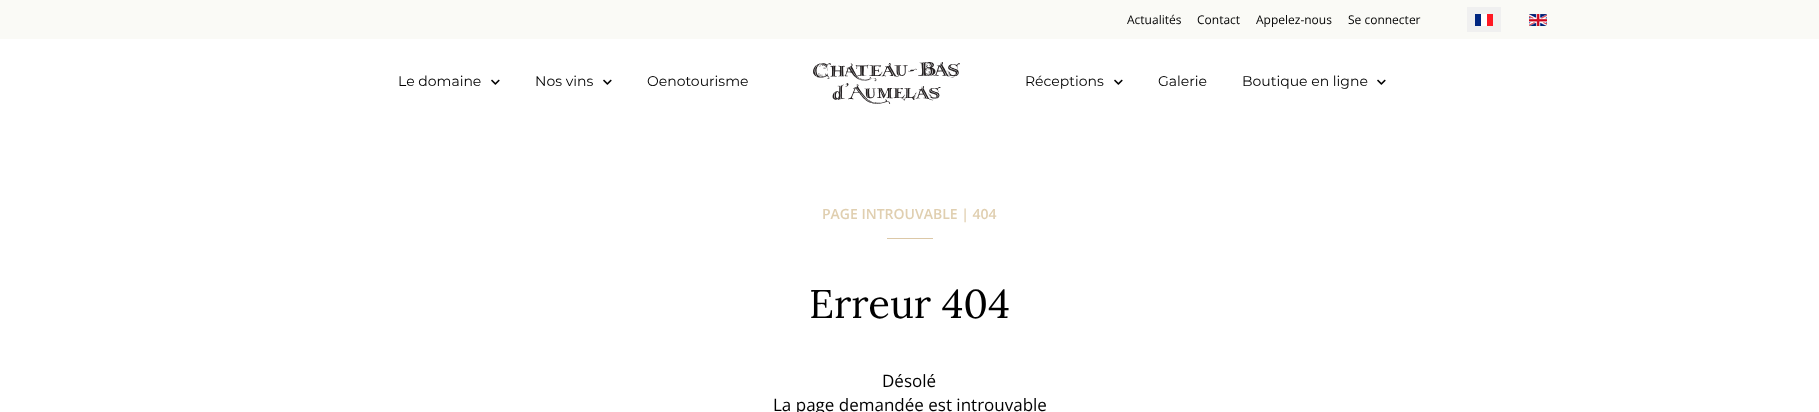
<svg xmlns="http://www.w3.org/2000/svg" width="1819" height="412">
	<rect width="100%" height="100%" fill="#FFFFFF" />
	<rect x="0" y="0" width="1819" height="39" fill="#FAFAF6" />
	<g font-family="Open Sans" font-size="12" fill="#000000">
		<text x="1127" y="24">Actualités</text>
		<text x="1197" y="24">Contact</text>
		<text x="1256" y="24">Appelez-nous</text>
		<text x="1348" y="24">Se connecter</text>
	</g>
	<rect x="1467" y="7" width="34" height="25" fill="#F0F0F0" />
	<image x="1475" y="14" width="18" height="12" href="assets/img1.png" />
	<image x="1529" y="14" width="18" height="12" href="assets/img2.png" />
	<text x="398" y="86" font-family="Montserrat" font-size="14" fill="#000000">Le domaine</text>
	<image x="491" y="79" width="9" height="6" href="assets/img3.png" />
	<text x="535" y="86" font-family="Montserrat" font-size="14" fill="#000000">Nos vins</text>
	<image x="603" y="79" width="9" height="6" href="assets/img3.png" />
	<text x="647" y="86" font-family="Montserrat" font-size="14" fill="#000000">Oenotourisme</text>
	<image x="813" y="62" width="147" height="42" href="assets/img4.png" />
	<text x="1025" y="86" font-family="Montserrat" font-size="14" fill="#000000">Réceptions</text>
	<image x="1114" y="79" width="9" height="6" href="assets/img3.png" />
	<g font-family="Montserrat" font-size="14" fill="#000000">
		<text x="1158" y="86">Galerie</text>
		<text x="1242" y="86">Boutique en ligne</text>
	</g>
	<image x="1377" y="79" width="9" height="6" href="assets/img3.png" />
	<text x="822" y="219" font-family="Open Sans" font-size="14" font-weight="600" fill="#E0CFB0">PAGE INTROUVABLE | 404</text>
	<rect x="887" y="238" width="46" height="1" fill="#DCC8A7" />
	<text x="809" y="318" font-family="Lora" font-size="40" fill="#000000">Erreur 404</text>
	<g font-family="Open Sans" font-size="17" fill="#000000">
		<text x="882" y="387">Désolé</text>
		<text x="773" y="411">La page demandée est introuvable</text>
	</g>
</svg>
